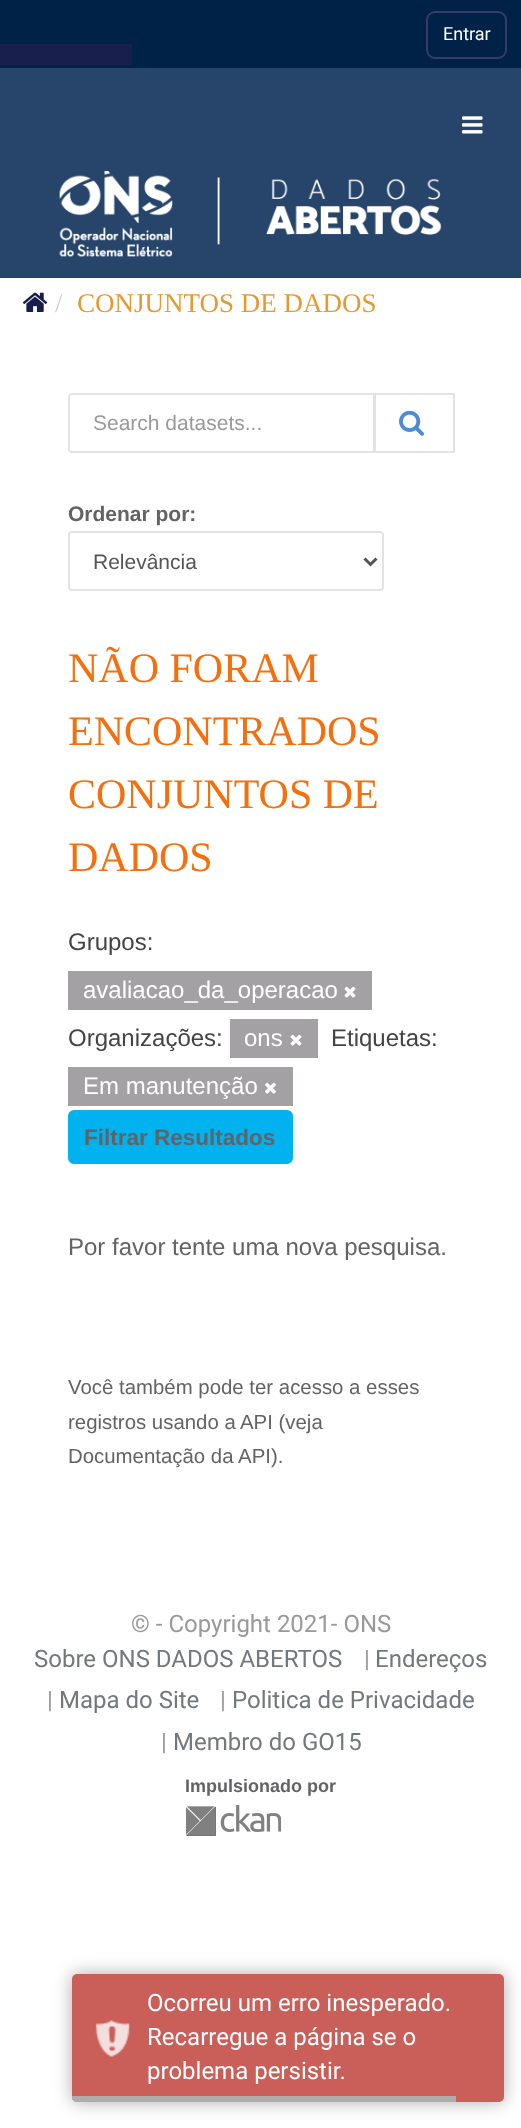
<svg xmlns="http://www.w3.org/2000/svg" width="521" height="2128">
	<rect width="100%" height="100%" fill="#FFFFFF" />
	<rect x="0" y="0" width="521" height="68" fill="#002247" />
	<rect x="427" y="12" width="79" height="46" rx="8" fill="none" stroke="#363C64" stroke-width="2" />
	<text x="443" y="40" font-family="Roboto" font-size="18" fill="#FFFFFF">Entrar</text>
	<rect x="0" y="44" width="132" height="21" fill="#181F4D" />
	<rect x="72" y="1974" width="432" height="128" rx="5" fill="#ADADAD" filter="blur(9px)" />
	<rect x="72" y="1974" width="432" height="128" rx="5" fill="#CA5E59" />
	<image x="95" y="2020" width="35" height="37" href="assets/img1.png" />
	<g font-family="Roboto" font-size="24" fill="#FFFFFF">
		<text x="147" y="2011">Ocorreu um erro inesperado.</text>
		<text x="147" y="2045">Recarregue a página se o</text>
		<text x="147" y="2079">problema persistir.</text>
	</g>
	<path d="M72 2096H456V2102H77C74 2102 72 2100 72 2097Z" fill="#ADADAD" />
	<rect x="0" y="68" width="521" height="210" fill="#27456B" />
	<image x="462" y="116" width="21" height="18" href="assets/img2.png" />
	<image x="59" y="171" width="383" height="86" href="assets/img3.png" />
	<image x="22" y="292" width="26" height="20" href="assets/img4.png" />
	<text x="55" y="312" font-family="Liberation Serif" font-size="27" fill="#CCCCCC">/</text>
	<text x="77" y="312" font-family="Liberation Serif" font-size="27" fill="#E7982F">CONJUNTOS DE DADOS</text>
	<path d="M72 394H374V452H72C70.5 452 69 450.5 69 449V397C69 395.5 70.5 394 72 394Z" fill="none" stroke="#E4E3E4" stroke-width="2" />
	<text x="93" y="430" font-family="Liberation Sans" font-size="21" fill="#999999">Search datasets...</text>
	<rect x="375" y="394" width="79" height="58" fill="none" stroke="#E4E3E4" stroke-width="2" />
	<image x="399" y="410" width="25" height="26" href="assets/img5.png" />
	<text x="68" y="521" font-family="Liberation Sans" font-size="21" font-weight="700" fill="#656266">Ordenar por:</text>
	<rect x="69" y="532" width="314" height="58" rx="3" fill="none" stroke="#E4E3E4" stroke-width="2" />
	<path d="M364.5 558.5L370.5 564.5L376.5 558.5" fill="none" stroke="#555555" stroke-width="3" />
	<text x="93" y="569" font-family="Liberation Sans" font-size="21" fill="#555555">Relevância</text>
	<g font-family="Liberation Serif" font-size="42" fill="#F4700E">
		<text x="68" y="682">NÃO FORAM</text>
		<text x="68" y="745">ENCONTRADOS</text>
		<text x="68" y="808">CONJUNTOS DE</text>
		<text x="68" y="871">DADOS</text>
	</g>
	<text x="68" y="950" font-family="Liberation Sans" font-size="24" fill="#444444">Grupos:</text>
	<rect x="68" y="971" width="304" height="39" fill="#A3A1A3" />
	<text x="83" y="998" font-family="Liberation Sans" font-size="24" fill="#FFFFFF">avaliacao_da_operacao</text>
	<image x="344" y="986" width="12" height="12" href="assets/img6.png" />
	<text x="68" y="1046" font-family="Liberation Sans" font-size="24" fill="#444444">Organizações:</text>
	<rect x="230" y="1019" width="88" height="39" fill="#A3A1A3" />
	<text x="244" y="1046" font-family="Liberation Sans" font-size="24" fill="#FFFFFF">ons</text>
	<image x="290" y="1034" width="12" height="12" href="assets/img6.png" />
	<text x="331" y="1046" font-family="Liberation Sans" font-size="24" fill="#444444">Etiquetas:</text>
	<rect x="68" y="1067" width="225" height="39" fill="#A3A1A3" />
	<text x="83" y="1094" font-family="Liberation Sans" font-size="24" fill="#FFFFFF">Em manutenção</text>
	<image x="265" y="1082" width="11" height="12" href="assets/img7.png" />
	<rect x="69" y="1111" width="223" height="52" rx="5" fill="#00B3EE" stroke="#00B3EE" stroke-width="2" />
	<text x="84" y="1145" font-family="Liberation Sans" font-size="22.5" font-weight="700" fill="#656266">Filtrar Resultados</text>
	<text x="68" y="1255" font-family="Liberation Sans" font-size="24" fill="#656266">Por favor tente uma nova pesquisa.</text>
	<g font-family="Liberation Sans" font-size="20.4" fill="#656266">
		<text x="68" y="1394">Você também pode ter acesso a esses</text>
		<text x="68" y="1429">registros usando a</text>
		<text x="240" y="1429">API (veja</text>
		<text x="68" y="1463">Documentação da API).</text>
	</g>
	<text x="131" y="1632" font-family="Roboto" font-size="24" fill="#999999">© - Copyright 2021- ONS</text>
	<text x="34" y="1667" font-family="Roboto" font-size="24" fill="#73787D">Sobre ONS DADOS ABERTOS</text>
	<text x="364" y="1667" font-family="Roboto" font-size="24" fill="#999999">|</text>
	<text x="375" y="1667" font-family="Roboto" font-size="24" fill="#73787D">Endereços</text>
	<text x="47" y="1708" font-family="Roboto" font-size="24" fill="#999999">|</text>
	<text x="59" y="1708" font-family="Roboto" font-size="24" fill="#73787D">Mapa do Site</text>
	<text x="220" y="1708" font-family="Roboto" font-size="24" fill="#999999">|</text>
	<text x="232" y="1708" font-family="Roboto" font-size="24" fill="#73787D">Politica de Privacidade</text>
	<text x="161" y="1750" font-family="Roboto" font-size="24" fill="#999999">|</text>
	<text x="173" y="1750" font-family="Roboto" font-size="24" fill="#73787D">Membro do GO15</text>
	<text x="185" y="1792" font-family="Liberation Sans" font-size="18" font-weight="700" fill="#656266">Impulsionado por</text>
	<image x="186" y="1805" width="95" height="31" href="assets/img8.png" />
</svg>
